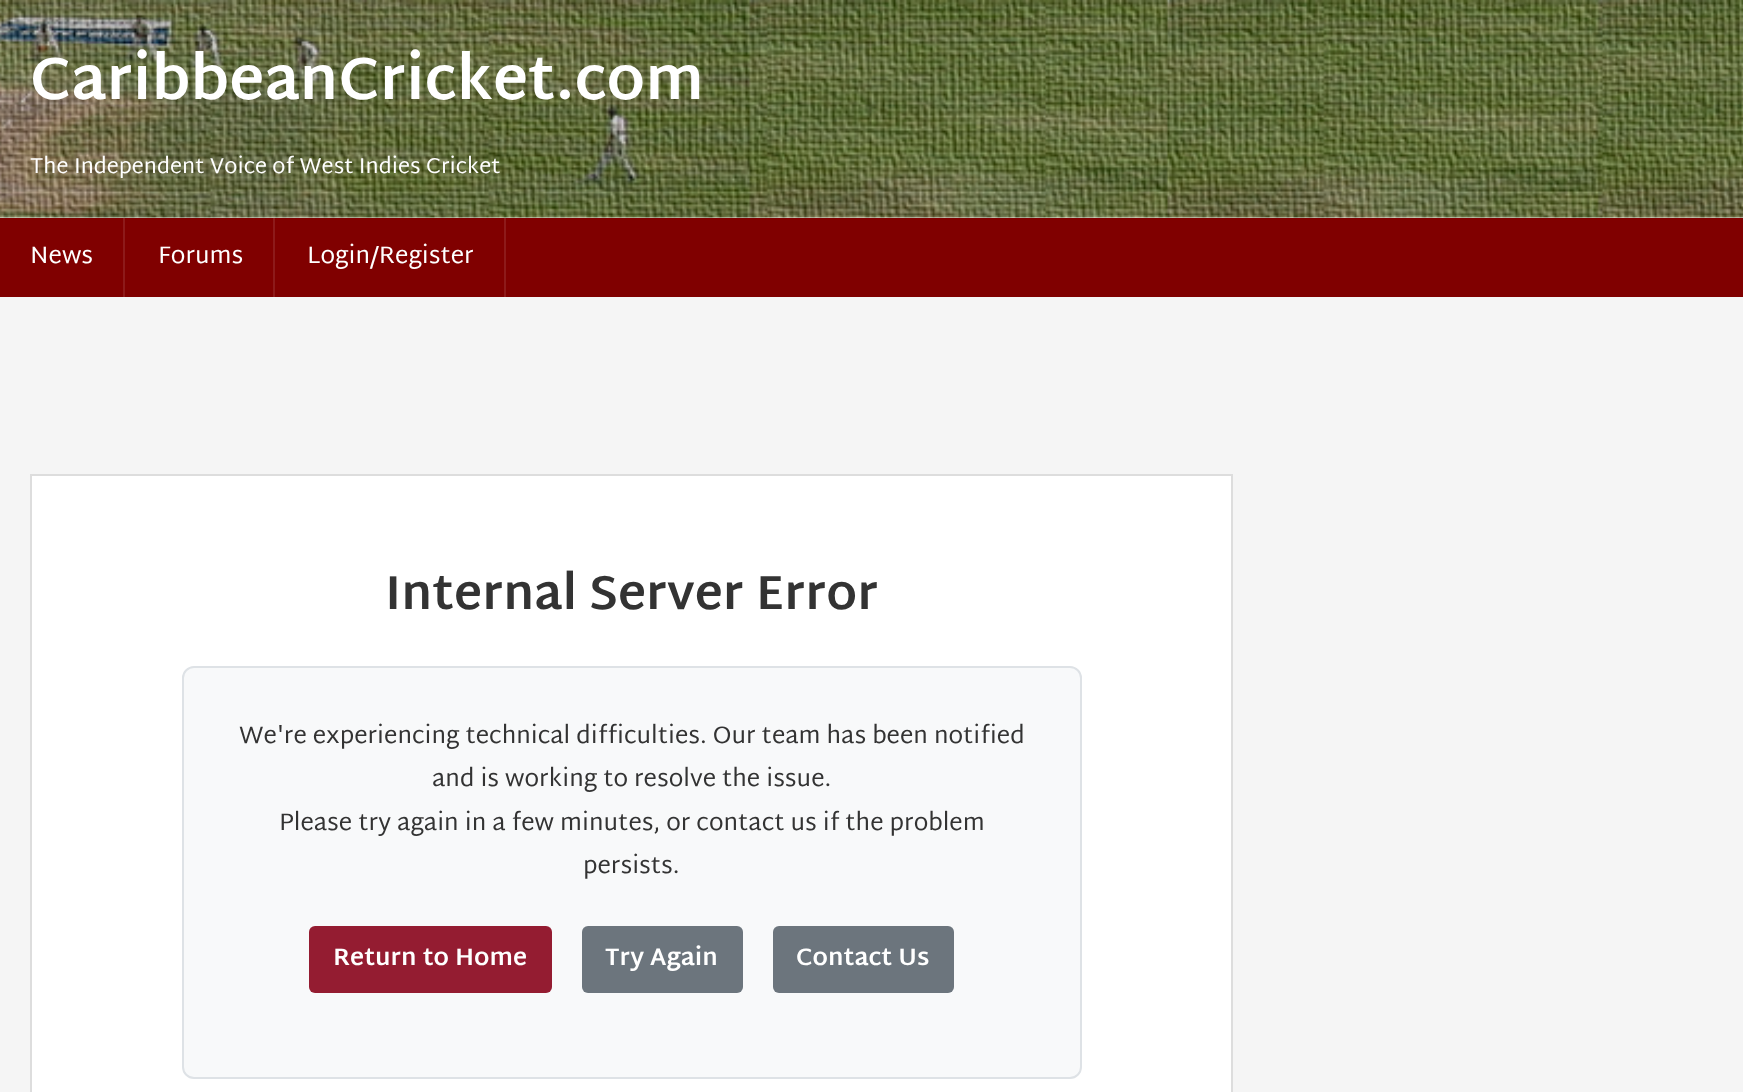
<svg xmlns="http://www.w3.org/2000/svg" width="1743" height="1092">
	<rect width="100%" height="100%" fill="#F5F5F5" />
	<image x="0" y="0" width="1743" height="218" href="assets/img1.png" />
	<text x="30" y="99" font-family="Martel Sans" font-size="60" font-weight="700" fill="#FFFFFF">CaribbeanCricket.com</text>
	<text x="30" y="173" font-family="Martel Sans" font-size="21.6" fill="#FFFFFF">The Independent Voice of West Indies Cricket</text>
	<rect x="0" y="218" width="1743" height="79" fill="#800000" />
	<rect x="123" y="218" width="2" height="79" fill="#8D1A1A" />
	<text x="30" y="263" font-family="Martel Sans" font-size="24" fill="#FFFFFF">News</text>
	<rect x="273" y="218" width="2" height="79" fill="#8D1A1A" />
	<text x="158" y="263" font-family="Martel Sans" font-size="24" fill="#FFFFFF">Forums</text>
	<rect x="504" y="218" width="2" height="79" fill="#8D1A1A" />
	<text x="307" y="263" font-family="Martel Sans" font-size="24" fill="#FFFFFF">Login/Register</text>
	<rect x="31" y="475" width="1201" height="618" fill="#FFFFFF" stroke="#DDDDDD" stroke-width="2" />
	<text x="385" y="609" font-family="Martel Sans" font-size="48" font-weight="700" fill="#333333">Internal Server Error</text>
	<rect x="183" y="667" width="898" height="411" rx="11" fill="#F8F9FA" stroke="#DEE2E6" stroke-width="2" />
	<g font-family="Martel Sans" font-size="24" fill="#333333">
		<text x="239" y="743">We're experiencing technical difficulties. Our team has been notified</text>
		<text x="432" y="786">and is working to resolve the issue.</text>
		<text x="279" y="830">Please try again in a few minutes, or contact us if the problem</text>
		<text x="583" y="873">persists.</text>
	</g>
	<rect x="309" y="926" width="243" height="67" rx="6" fill="#941C31" />
	<text x="333" y="965" font-family="Martel Sans" font-size="24" font-weight="700" fill="#FFFFFF">Return to Home</text>
	<rect x="582" y="926" width="161" height="67" rx="6" fill="#6C757D" />
	<text x="605" y="965" font-family="Martel Sans" font-size="24" font-weight="700" fill="#FFFFFF">Try Again</text>
	<rect x="773" y="926" width="181" height="67" rx="6" fill="#6C757D" />
	<text x="796" y="965" font-family="Martel Sans" font-size="24" font-weight="700" fill="#FFFFFF">Contact Us</text>
</svg>
